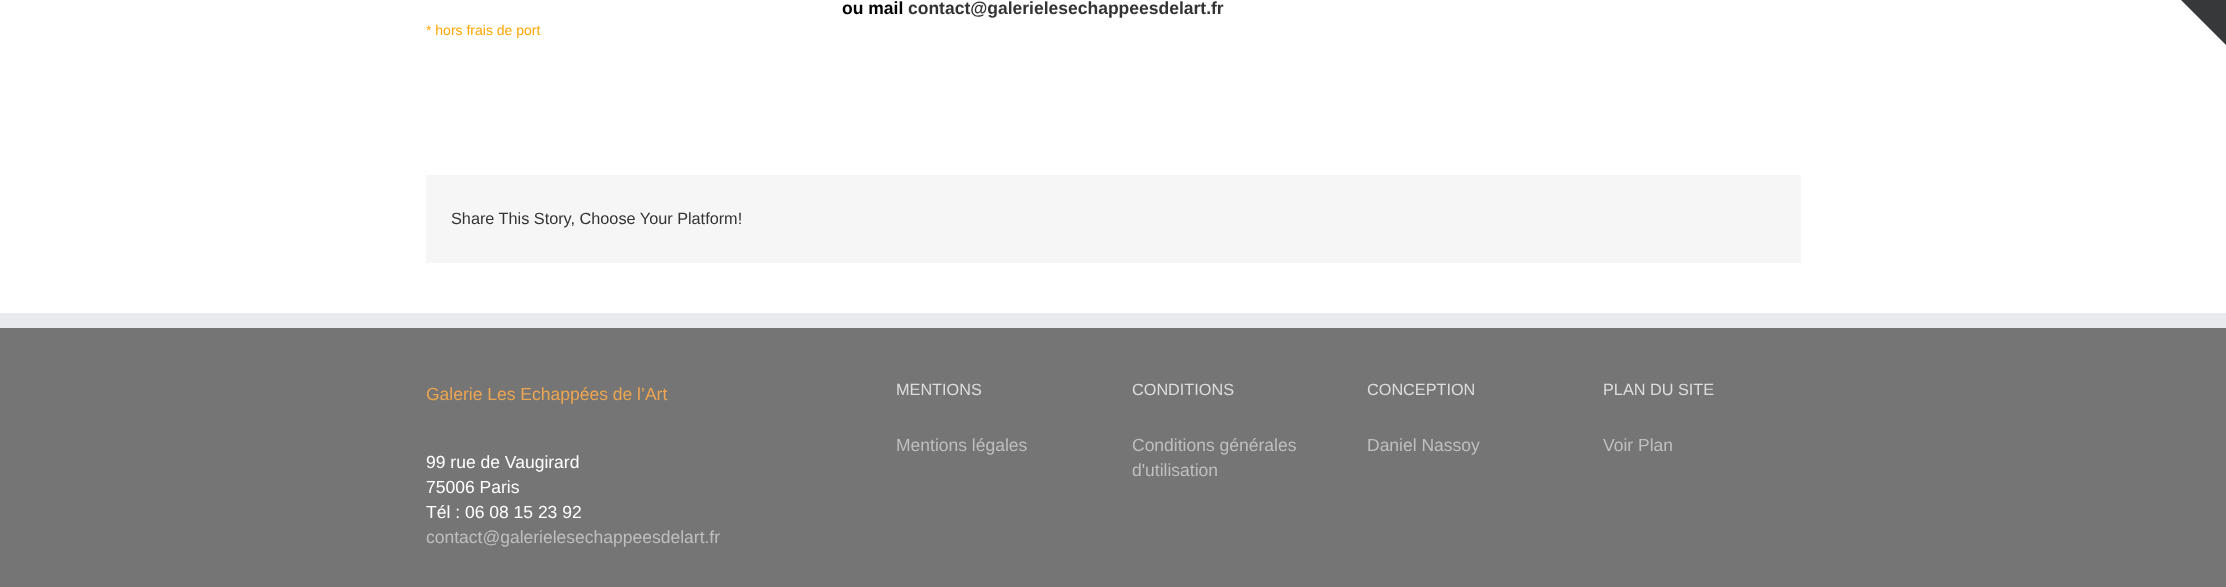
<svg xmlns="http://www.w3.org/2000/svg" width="2226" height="587">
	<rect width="100%" height="100%" fill="#FFFFFF" />
	<text x="842" y="14" font-family="Liberation Sans" font-size="17.5" font-weight="700" fill="#000000">ou mail</text>
	<text x="908" y="14" font-family="Liberation Sans" font-size="17.5" font-weight="700" fill="#333333">contact@galerielesechappeesdelart.fr</text>
	<text x="426" y="35" font-family="Liberation Sans" font-size="14" fill="#FFA500">* hors frais de port</text>
	<rect x="426" y="175" width="1375" height="88" fill="#F6F6F6" />
	<text x="451" y="224" font-family="Liberation Sans" font-size="16.25" fill="#333333">Share This Story, Choose Your Platform!</text>
	<path d="M2181 0H2226V45Z" fill="#363839" />
	<rect x="0" y="328" width="2226" height="259" fill="#757575" />
	<rect x="0" y="313" width="2226" height="15" fill="#E9EAEE" />
	<text x="426" y="400" font-family="Liberation Sans" font-size="17.5" fill="#EDA550">Galerie Les Echappées de l’Art</text>
	<g font-family="Liberation Sans" font-size="17.5" fill="#FFFFFF">
		<text x="426" y="468">99 rue de Vaugirard</text>
		<text x="426" y="493">75006 Paris</text>
		<text x="426" y="518">Tél : 06 08 15 23 92</text>
	</g>
	<text x="426" y="543" font-family="Liberation Sans" font-size="17.5" fill="#BFBFBF">contact@galerielesechappeesdelart.fr</text>
	<text x="896" y="395" font-family="Liberation Sans" font-size="16.25" fill="#DDDDDD">MENTIONS</text>
	<text x="896" y="451" font-family="Liberation Sans" font-size="17.5" fill="#BFBFBF">Mentions légales</text>
	<text x="1132" y="395" font-family="Liberation Sans" font-size="16.25" fill="#DDDDDD">CONDITIONS</text>
	<g font-family="Liberation Sans" font-size="17.5" fill="#BFBFBF">
		<text x="1132" y="451">Conditions générales</text>
		<text x="1132" y="476">d'utilisation</text>
	</g>
	<text x="1367" y="395" font-family="Liberation Sans" font-size="16.25" fill="#DDDDDD">CONCEPTION</text>
	<text x="1367" y="451" font-family="Liberation Sans" font-size="17.5" fill="#BFBFBF">Daniel Nassoy</text>
	<text x="1603" y="395" font-family="Liberation Sans" font-size="16.25" fill="#DDDDDD">PLAN DU SITE</text>
	<text x="1603" y="451" font-family="Liberation Sans" font-size="17.5" fill="#BFBFBF">Voir Plan</text>
</svg>
